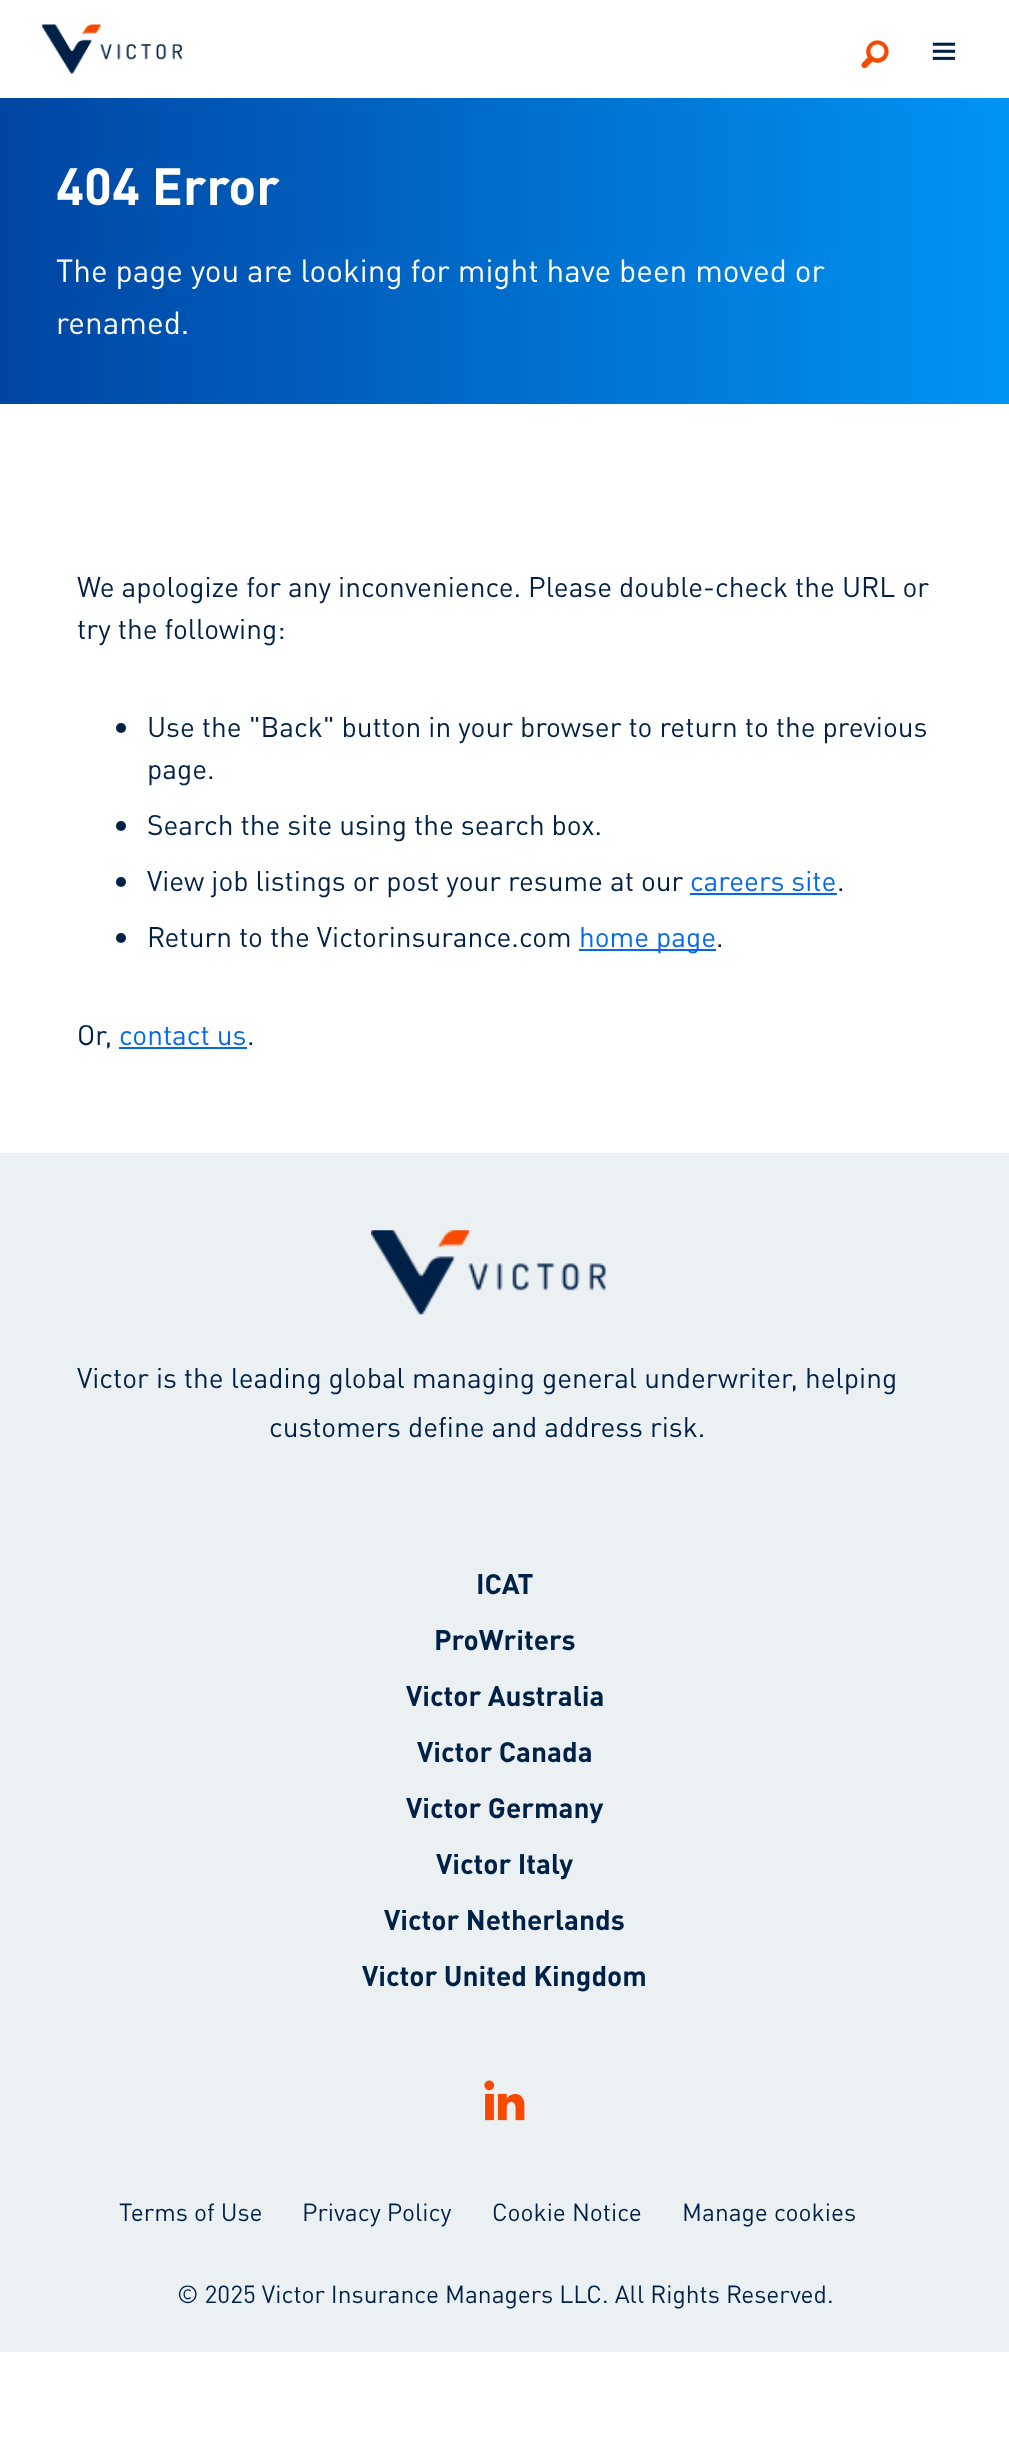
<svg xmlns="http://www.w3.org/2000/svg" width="1009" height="2463">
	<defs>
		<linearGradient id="g1" gradientUnits="userSpaceOnUse" x1="0" y1="251" x2="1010" y2="251"><stop offset="0" stop-color="#0045A2" /><stop offset="1" stop-color="#0094F4" /></linearGradient>
	</defs>
	<rect width="100%" height="100%" fill="#FFFFFF" />
	<image x="42" y="24" width="140" height="50" href="assets/img1.png" />
	<image x="861" y="40" width="28" height="29" href="assets/img2.png" />
	<image x="932" y="42" width="24" height="18" href="assets/img3.png" />
	<rect x="0" y="98" width="1009" height="306" fill="url(#g1)" />
	<text x="56" y="205" font-family="DIN" font-size="51.5" fill="#FFFFFF">404 Error</text>
	<g font-family="'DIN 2'" font-size="31.5" fill="#FFFFFF">
		<text x="56" y="282">The page you are looking for might have been moved or</text>
		<text x="56" y="334">renamed.</text>
	</g>
	<g font-family="'DIN 2'" font-size="28" fill="#002147">
		<text x="77" y="597">We apologize for any inconvenience. Please double-check the URL or</text>
		<text x="77" y="639">try the following:</text>
	</g>
	<circle cx="121" cy="728" r="5" fill="#002147" />
	<g font-family="'DIN 2'" font-size="28" fill="#002147">
		<text x="147" y="737">Use the "Back" button in your browser to return to the previous</text>
		<text x="147" y="779">page.</text>
	</g>
	<circle cx="121" cy="826" r="5" fill="#002147" />
	<text x="147" y="835" font-family="'DIN 2'" font-size="28" fill="#002147">Search the site using the search box.</text>
	<circle cx="121" cy="882" r="5" fill="#002147" />
	<text x="147" y="891" font-family="'DIN 2'" font-size="28" fill="#002147">View job listings or post your resume at our</text>
	<text x="690" y="891" font-family="'DIN 2'" font-size="28" fill="#0468EC">careers site</text>
	<rect x="690" y="893" width="147" height="2" fill="#0468EC" />
	<text x="837" y="891" font-family="'DIN 2'" font-size="28" fill="#002147">.</text>
	<circle cx="121" cy="938" r="5" fill="#002147" />
	<text x="147" y="947" font-family="'DIN 2'" font-size="28" fill="#002147">Return to the Victorinsurance.com</text>
	<rect x="579" y="949" width="137" height="2" fill="#0468EC" />
	<text x="579" y="947" font-family="'DIN 2'" font-size="28" fill="#0468EC">home page</text>
	<g font-family="'DIN 2'" font-size="28" fill="#002147">
		<text x="716" y="947">.</text>
		<text x="77" y="1045">Or,</text>
	</g>
	<text x="119" y="1045" font-family="'DIN 2'" font-size="28" fill="#0468EC">contact us</text>
	<rect x="119" y="1047" width="128" height="2" fill="#0468EC" />
	<text x="247" y="1045" font-family="'DIN 2'" font-size="28" fill="#002147">.</text>
	<rect x="0" y="1153" width="1009" height="1199" fill="#EBF0F3" />
	<image x="371" y="1230" width="235" height="85" href="assets/img4.png" />
	<g font-family="'DIN 2'" font-size="28" fill="#002147">
		<text x="77" y="1388">Victor is the leading global managing general underwriter, helping</text>
		<text x="269" y="1437">customers define and address risk.</text>
	</g>
	<g font-family="DIN" font-size="28" fill="#002147">
		<text x="476" y="1594">ICAT</text>
		<text x="434" y="1650">ProWriters</text>
		<text x="406" y="1706">Victor Australia</text>
		<text x="417" y="1762">Victor Canada</text>
		<text x="406" y="1818">Victor Germany</text>
		<text x="436" y="1874">Victor Italy</text>
		<text x="384" y="1930">Victor Netherlands</text>
		<text x="362" y="1986">Victor United Kingdom</text>
	</g>
	<image x="484" y="2080" width="41" height="41" href="assets/img5.png" />
	<g font-family="'DIN 2'" font-size="24.5" fill="#002147">
		<text x="119" y="2221">Terms of Use</text>
		<text x="302" y="2221">Privacy Policy</text>
		<text x="492" y="2221">Cookie Notice</text>
		<text x="682" y="2221">Manage cookies</text>
		<text x="177" y="2303">© 2025 Victor Insurance Managers LLC. All Rights Reserved.</text>
	</g>
</svg>
